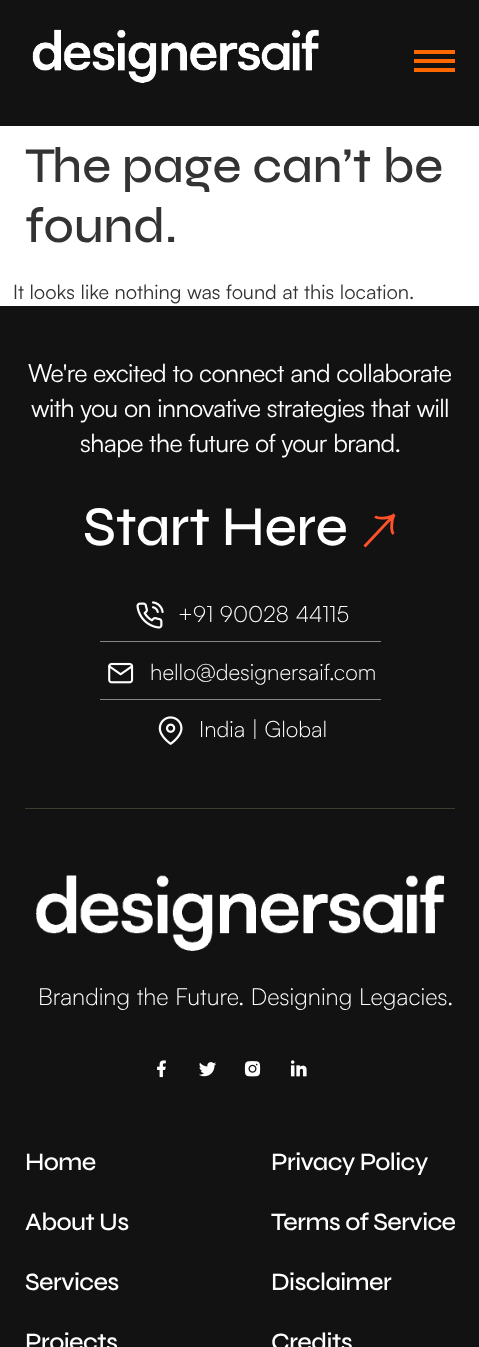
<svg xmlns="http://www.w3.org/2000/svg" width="479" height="1347">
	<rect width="100%" height="100%" fill="#FFFFFF" />
	<rect x="0" y="0" width="479" height="126" fill="#121212" />
	<image x="32" y="29" width="287" height="54" href="assets/img1.png" />
	<rect x="414" y="50" width="41" height="4" fill="#FF6700" />
	<rect x="414" y="59" width="41" height="4" fill="#FF6700" />
	<rect x="414" y="68" width="41" height="4" fill="#FF6700" />
	<g font-family="Syne" font-size="50" font-weight="500" fill="#333333">
		<text x="25" y="182">The page can’t be</text>
		<text x="25" y="242">found.</text>
	</g>
	<text x="13" y="299" font-family="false" font-size="20" fill="#333333">It looks like nothing was found at this location.</text>
	<rect x="0" y="306" width="479" height="1041" fill="#121212" />
	<g font-family="false" font-size="25" letter-spacing="-0.6" fill="#FFFFFF">
		<text x="28" y="382">We're excited to connect and collaborate</text>
		<text x="31" y="417">with you on innovative strategies that will</text>
		<text x="80" y="452">shape the future of your brand.</text>
	</g>
	<text x="83" y="545" font-family="Syne" font-size="56.25" font-weight="500" letter-spacing="-0.6" fill="#FFFFFF">Start Here</text>
	<path d="M375 516.5C378.5 519.5 391.5 518 394.5 514.5M394.5 514.5C391.5 518 390.5 531 393.5 534M394.5 514.5L364.5 546.5" fill="none" stroke="#FF512A" stroke-width="2.9" />
	<image x="136" y="601" width="28" height="28" href="assets/img2.png" />
	<text x="178" y="622" font-family="Satoshi" font-size="22.5" font-weight="300" fill="#FFFFFF">+91 90028 44115</text>
	<rect x="100" y="641" width="281" height="1" fill="#868686" />
	<image x="108" y="662" width="26" height="22" href="assets/img3.png" />
	<text x="150" y="680" font-family="Satoshi" font-size="22.5" font-weight="300" fill="#FFFFFF">hello@designersaif.com</text>
	<rect x="100" y="699" width="281" height="1" fill="#868686" />
	<image x="158" y="716" width="25" height="29" href="assets/img4.png" />
	<text x="199" y="737" font-family="Satoshi" font-size="22.5" font-weight="300" fill="#FFFFFF">India | Global</text>
	<rect x="25" y="808" width="430" height="1" fill="#38402D" />
	<image x="36" y="875" width="409" height="76" href="assets/img5.png" />
	<text x="38" y="1005" font-family="Satoshi" font-size="23.75" font-weight="300" fill="#FFFFFF">Branding the Future. Designing Legacies.</text>
	<image x="157" y="1060" width="9" height="18" href="assets/img6.png" />
	<image x="199" y="1062" width="17" height="15" href="assets/img7.png" />
	<image x="244" y="1061" width="17" height="16" href="assets/img8.png" />
	<image x="290" y="1060" width="17" height="17" href="assets/img9.png" />
	<g font-family="Syne" font-size="25" font-weight="500" letter-spacing="-0.6" fill="#FFFFFF">
		<text x="25" y="1170">Home</text>
		<text x="25" y="1230">About Us</text>
		<text x="25" y="1290">Services</text>
		<text x="25" y="1350">Projects</text>
		<text x="271" y="1170">Privacy Policy</text>
		<text x="271" y="1230">Terms of Service</text>
		<text x="271" y="1290">Disclaimer</text>
		<text x="271" y="1350">Credits</text>
	</g>
</svg>
